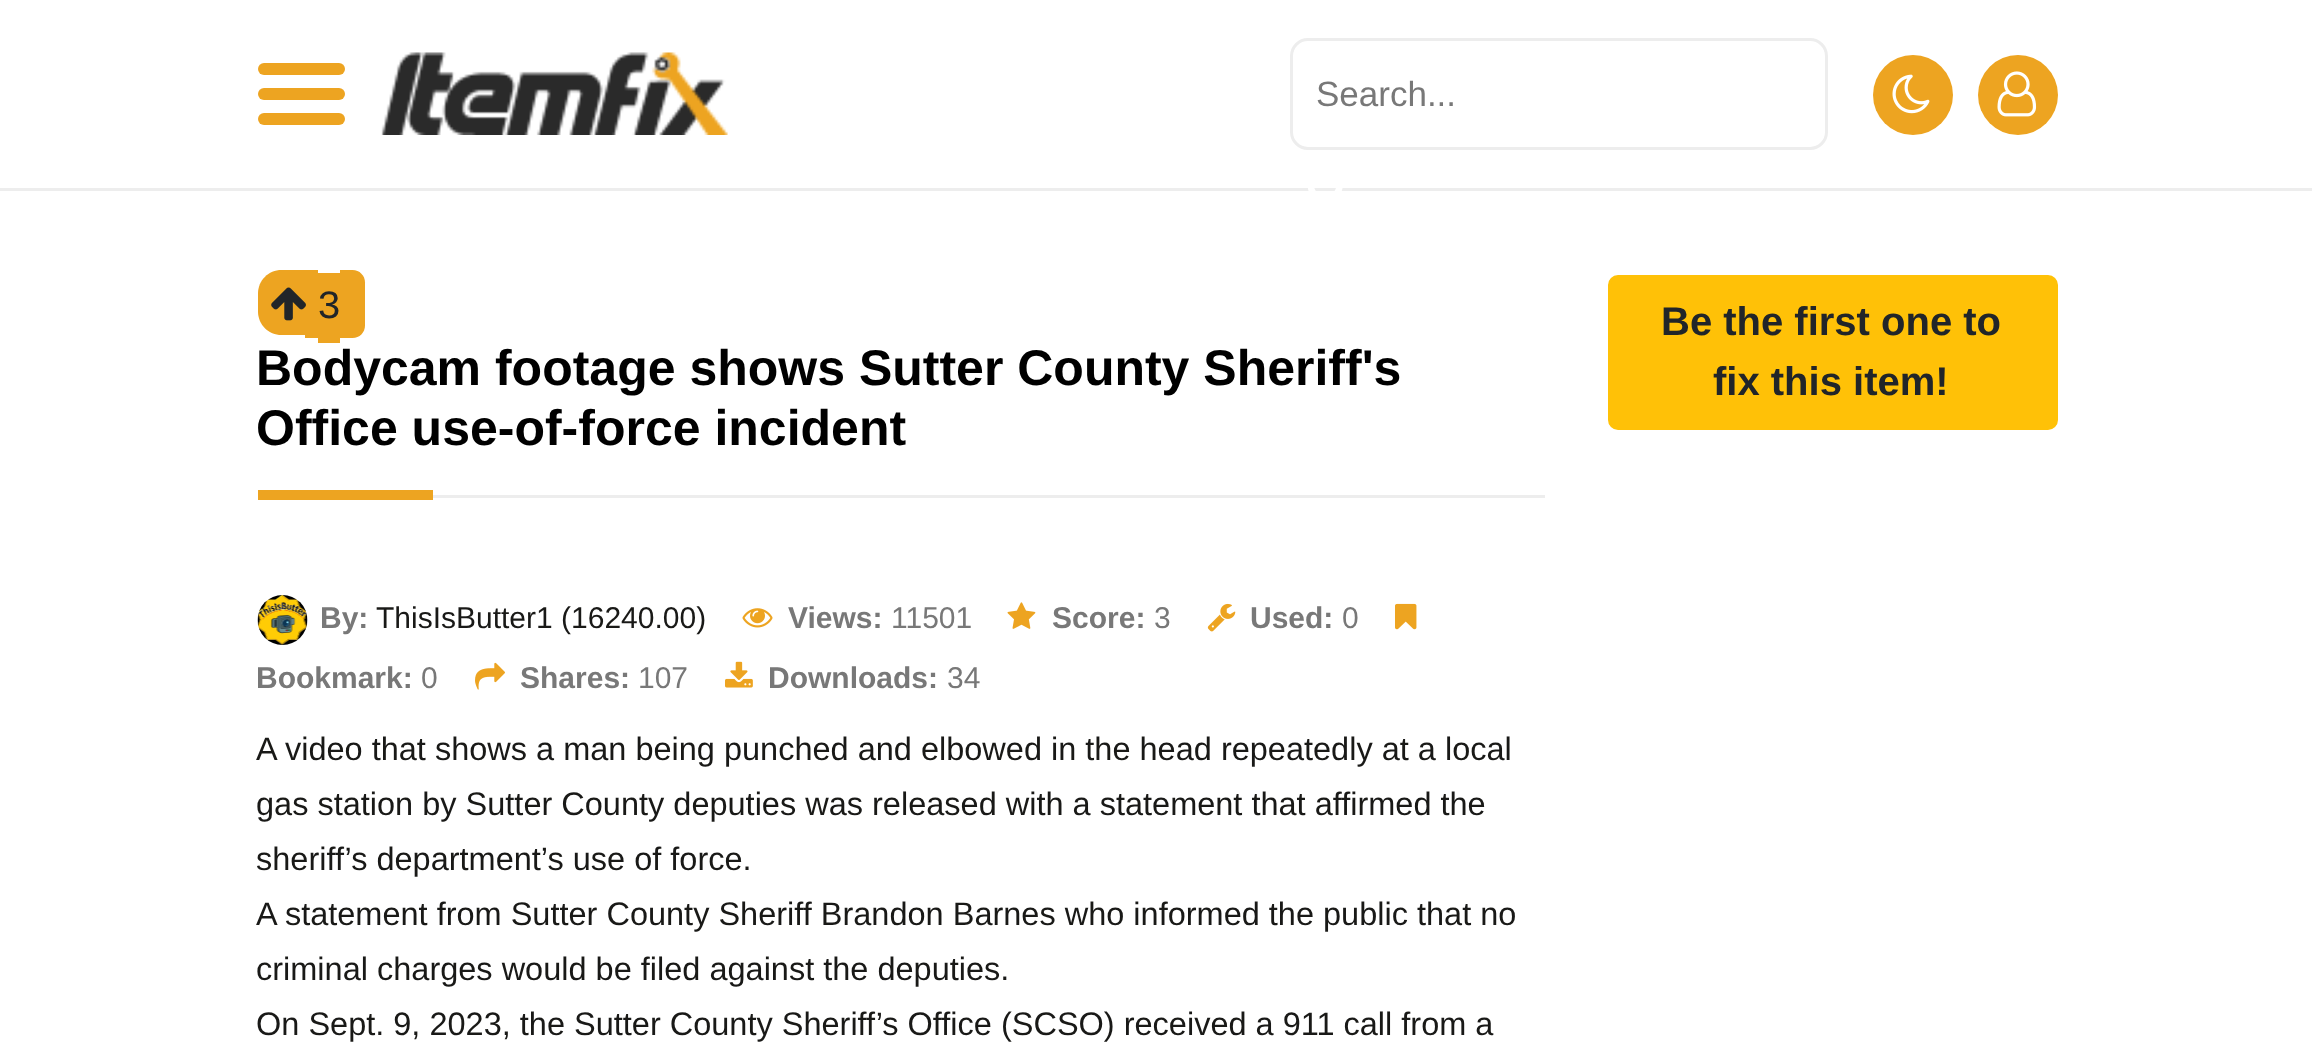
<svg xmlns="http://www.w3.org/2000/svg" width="2312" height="1058">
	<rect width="100%" height="100%" fill="#FFFFFF" />
	<rect x="0" y="188" width="2312" height="3" fill="#EDEDED" />
	<rect x="258" y="63" width="87" height="12" rx="6" fill="#EDA421" />
	<rect x="258" y="88" width="87" height="12" rx="6" fill="#EDA421" />
	<rect x="258" y="113" width="87" height="12" rx="6" fill="#EDA421" />
	<image x="381" y="52" width="347" height="83" href="assets/img1.png" />
	<rect x="1291.5" y="39.5" width="535" height="109" rx="16.5" fill="none" stroke="#EDEDED" stroke-width="3" />
	<text x="1316" y="106" font-family="Liberation Sans" font-size="35" fill="#787878">Search...</text>
	<image x="1308" y="188" width="35" height="3" href="assets/img2.png" />
	<circle cx="1913" cy="95" r="40" fill="#EDA421" />
	<image x="1892" y="74" width="38" height="40" href="assets/img3.png" />
	<circle cx="2018" cy="95" r="40" fill="#EDA421" />
	<image x="1997" y="71" width="40" height="46" href="assets/img4.png" />
	<path d="M281.5 270H305V335H281.5C268.5 335 258 324.5 258 311.5V293.5C258 280.5 268.5 270 281.5 270Z" fill="#EDA421" />
	<rect x="305" y="270" width="13" height="68" fill="#EDA421" />
	<rect x="318" y="273" width="22" height="70" fill="#EDA421" />
	<path d="M340 270H352.5C359.5 270 365 275.5 365 282.5V325.5C365 332.5 359.5 338 352.5 338H340Z" fill="#EDA421" />
	<image x="271" y="287" width="35" height="34" href="assets/img5.png" />
	<text x="317" y="318" font-family="Liberation Mono" font-size="40" fill="#212529">3</text>
	<rect x="433" y="495" width="1112" height="3" fill="#EDEDED" />
	<g font-family="Liberation Sans" font-size="50" font-weight="700" fill="#000000">
		<text x="256" y="385">Bodycam footage shows Sutter County Sheriff's</text>
		<text x="256" y="445">Office use-of-force incident</text>
	</g>
	<rect x="258" y="490" width="175" height="10" fill="#EDA421" />
	<image x="257" y="595" width="51" height="50" href="assets/img6.png" />
	<text x="320" y="628" font-family="Liberation Sans" font-size="30" font-weight="700" fill="#787878">By:</text>
	<text x="376" y="628" font-family="Liberation Sans" font-size="30" fill="#191917">ThisIsButter1 (16240.00)</text>
	<image x="742" y="608" width="31" height="20" href="assets/img7.png" />
	<text x="788" y="628" font-family="Liberation Sans" font-size="30" font-weight="700" fill="#787878">Views:</text>
	<text x="891" y="628" font-family="Liberation Sans" font-size="30" fill="#787878">11501</text>
	<image x="1007" y="602" width="29" height="27" href="assets/img8.png" />
	<text x="1052" y="628" font-family="Liberation Sans" font-size="30" font-weight="700" fill="#787878">Score:</text>
	<text x="1154" y="628" font-family="Liberation Sans" font-size="30" fill="#787878">3</text>
	<image x="1207" y="603" width="29" height="29" href="assets/img9.png" />
	<text x="1250" y="628" font-family="Liberation Sans" font-size="30" font-weight="700" fill="#787878">Used:</text>
	<text x="1342" y="628" font-family="Liberation Sans" font-size="30" fill="#787878">0</text>
	<image x="1395" y="603" width="22" height="27" href="assets/img10.png" />
	<text x="256" y="688" font-family="Liberation Sans" font-size="30" font-weight="700" fill="#787878">Bookmark:</text>
	<text x="421" y="688" font-family="Liberation Sans" font-size="30" fill="#787878">0</text>
	<image x="475" y="662" width="30" height="28" href="assets/img11.png" />
	<text x="520" y="688" font-family="Liberation Sans" font-size="30" font-weight="700" fill="#787878">Shares:</text>
	<text x="638" y="688" font-family="Liberation Sans" font-size="30" fill="#787878">107</text>
	<image x="725" y="661" width="28" height="27" href="assets/img12.png" />
	<text x="768" y="688" font-family="Liberation Sans" font-size="30" font-weight="700" fill="#787878">Downloads:</text>
	<text x="947" y="688" font-family="Liberation Sans" font-size="30" fill="#787878">34</text>
	<g font-family="Liberation Sans" font-size="32.5" fill="#191917">
		<text x="256" y="760">A video that shows a man being punched and elbowed in the head repeatedly at a local</text>
		<text x="256" y="815">gas station by Sutter County deputies was released with a statement that affirmed the</text>
		<text x="256" y="870">sheriff’s department’s use of force.</text>
		<text x="256" y="925">A statement from Sutter County Sheriff Brandon Barnes who informed the public that no</text>
		<text x="256" y="980">criminal charges would be filed against the deputies.</text>
		<text x="256" y="1035">On Sept. 9, 2023, the Sutter County Sheriff’s Office (SCSO) received a 911 call from a</text>
	</g>
	<rect x="1609.5" y="276.5" width="447" height="152" rx="8.5" fill="#FFC107" stroke="#FFC107" stroke-width="3" />
	<g font-family="Liberation Sans" font-size="40" font-weight="700" fill="#212529">
		<text x="1661" y="335">Be the first one to</text>
		<text x="1713" y="395">fix this item!</text>
	</g>
</svg>
